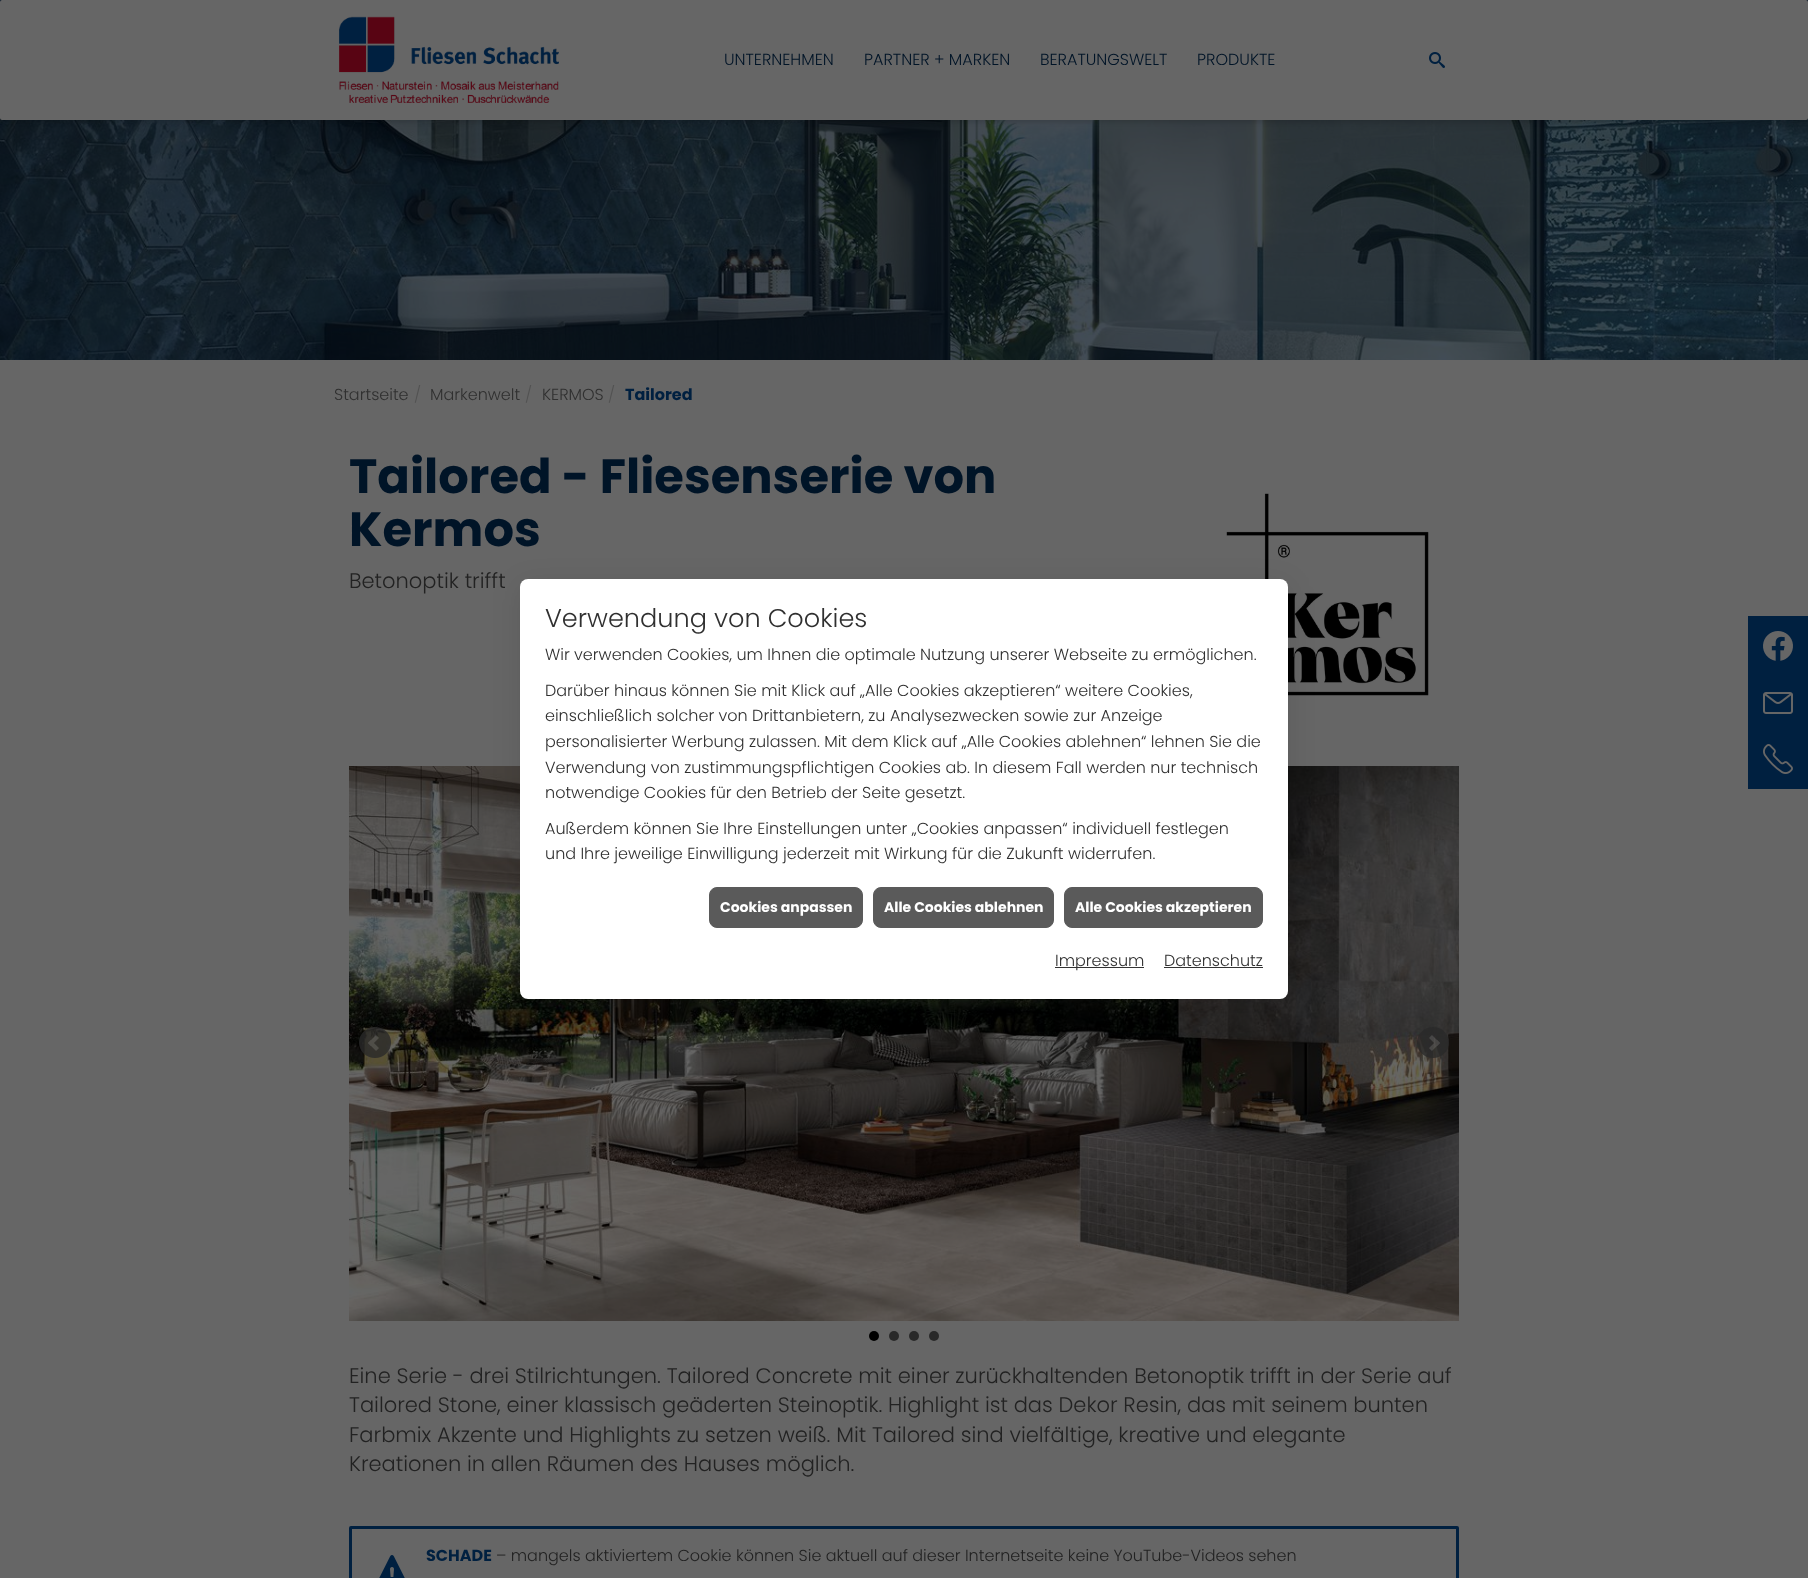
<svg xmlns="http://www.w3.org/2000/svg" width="1808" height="1578">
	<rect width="100%" height="100%" fill="#666666" />
	<rect x="0" y="0" width="1808" height="2" fill="#001427" />
	<image x="0" y="118" width="1808" height="242" href="assets/img6.png" />
	<rect x="0" y="2" width="1808" height="120" rx="2" fill="#000000" fill-opacity="0.15" filter="blur(2.5px)" />
	<rect x="0" y="0" width="1808" height="120" rx="2" fill="#666666" />
	<image x="339" y="16" width="220" height="87" href="assets/img1.png" />
	<g font-family="Poppins" font-size="16" font-weight="300" fill="#001427">
		<text x="724" y="65">UNTERNEHMEN</text>
		<text x="864" y="65">PARTNER + MARKEN</text>
		<text x="1040" y="65">BERATUNGSWELT</text>
		<text x="1197" y="65">PRODUKTE</text>
	</g>
	<image x="1429" y="52" width="16" height="16" href="assets/img2.png" />
	<rect x="1748" y="616" width="60" height="173" fill="#002040" />
	<image x="1763" y="631" width="30" height="30" href="assets/img3.png" />
	<image x="1763" y="692" width="30" height="22" href="assets/img4.png" />
	<image x="1763" y="744" width="30" height="30" href="assets/img5.png" />
	<text x="334" y="400" font-family="Poppins" font-size="16" font-weight="300" fill="#303030">Startseite</text>
	<text x="414" y="400" font-family="Poppins" font-size="16" font-weight="300" fill="#525252">/</text>
	<text x="430" y="400" font-family="Poppins" font-size="16" font-weight="300" fill="#303030">Markenwelt</text>
	<text x="525" y="400" font-family="Poppins" font-size="16" font-weight="300" fill="#525252">/</text>
	<text x="542" y="400" font-family="Poppins" font-size="16" font-weight="300" fill="#303030">KERMOS</text>
	<text x="608" y="400" font-family="Poppins" font-size="16" font-weight="300" fill="#525252">/</text>
	<text x="625" y="400" font-family="Poppins" font-size="16" font-weight="700" fill="#002040">Tailored</text>
	<g font-family="Poppins" font-size="48" font-weight="700" fill="#001427">
		<text x="349" y="493">Tailored - Fliesenserie von</text>
		<text x="349" y="546">Kermos</text>
	</g>
	<text x="349" y="588" font-family="Poppins" font-size="21" font-weight="300" fill="#222222">Betonoptik trifft</text>
	<image x="1226" y="493" width="203" height="203" href="assets/img7.png" />
	<image x="349" y="766" width="1110" height="555" href="assets/img8.png" />
	<image x="359" y="1027" width="32" height="31" href="assets/img9.png" />
	<image x="1417" y="1027" width="32" height="31" href="assets/img10.png" />
	<circle cx="874" cy="1336" r="5" fill="#000000" />
	<circle cx="894" cy="1336" r="5" fill="#292929" />
	<circle cx="914" cy="1336" r="5" fill="#292929" />
	<circle cx="934" cy="1336" r="5" fill="#292929" />
	<g font-family="Poppins" font-size="21" font-weight="300" fill="#222222">
		<text x="349" y="1383">Eine Serie - drei Stilrichtungen. Tailored Concrete mit einer zurückhaltenden Betonoptik trifft in der Serie auf</text>
		<text x="349" y="1412">Tailored Stone, einer klassisch geäderten Steinoptik. Highlight ist das Dekor Resin, das mit seinem bunten</text>
		<text x="349" y="1442">Farbmix Akzente und Highlights zu setzen weiß. Mit Tailored sind vielfältige, kreative und elegante</text>
		<text x="349" y="1471">Kreationen in allen Räumen des Hauses möglich.</text>
	</g>
	<rect x="350.5" y="1527.5" width="1107" height="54" rx="0.5" fill="none" stroke="#002040" stroke-width="3" />
	<image x="379" y="1555" width="26" height="23" href="assets/img11.png" />
	<text x="426" y="1561" font-family="Poppins" font-size="16" font-weight="700" fill="#002040">SCHADE</text>
	<text x="496" y="1561" font-family="Poppins" font-size="16" font-weight="300" fill="#222222">– mangels aktiviertem Cookie können Sie aktuell auf dieser Internetseite keine YouTube-Videos sehen</text>
	<rect x="520" y="585" width="768" height="420" rx="8" fill="#000000" fill-opacity="0.1" filter="blur(14px)" />
	<rect x="520" y="579" width="768" height="420" rx="8" fill="#FFFFFF" />
	<text x="545" y="627" font-family="Poppins" font-size="25.6" font-weight="300" fill="#303030">Verwendung von Cookies</text>
	<g font-family="Poppins" font-size="16" font-weight="300" fill="#303030">
		<text x="545" y="660">Wir verwenden Cookies, um Ihnen die optimale Nutzung unserer Webseite zu ermöglichen.</text>
		<text x="545" y="696">Darüber hinaus können Sie mit Klick auf „Alle Cookies akzeptieren“ weitere Cookies,</text>
		<text x="545" y="721">einschließlich solcher von Drittanbietern, zu Analysezwecken sowie zur Anzeige</text>
		<text x="545" y="747">personalisierter Werbung zulassen. Mit dem Klick auf „Alle Cookies ablehnen“ lehnen Sie die</text>
		<text x="545" y="773">Verwendung von zustimmungspflichtigen Cookies ab. In diesem Fall werden nur technisch</text>
		<text x="545" y="798">notwendige Cookies für den Betrieb der Seite gesetzt.</text>
		<text x="545" y="834">Außerdem können Sie Ihre Einstellungen unter „Cookies anpassen“ individuell festlegen</text>
		<text x="545" y="859">und Ihre jeweilige Einwilligung jederzeit mit Wirkung für die Zukunft widerrufen.</text>
	</g>
	<rect x="709.5" y="887.5" width="153" height="40" rx="7.5" fill="#5A5A5A" stroke="#5A5A5A" />
	<text x="720" y="912" font-family="Poppins" font-size="14" font-weight="700" fill="#FFFFFF">Cookies anpassen</text>
	<rect x="873.5" y="887.5" width="180" height="40" rx="7.5" fill="#5A5A5A" stroke="#5A5A5A" />
	<text x="884" y="912" font-family="Poppins" font-size="14" font-weight="700" fill="#FFFFFF">Alle Cookies ablehnen</text>
	<rect x="1064.5" y="887.5" width="198" height="40" rx="7.5" fill="#5A5A5A" stroke="#5A5A5A" />
	<text x="1075" y="912" font-family="Poppins" font-size="14" font-weight="700" fill="#FFFFFF">Alle Cookies akzeptieren</text>
	<rect x="1055" y="967" width="89" height="1" fill="#333333" />
	<g font-family="Poppins" font-size="16" font-weight="300" fill="#303030">
		<text x="1055" y="966">Impressum</text>
		<text x="1164" y="966">Datenschutz</text>
	</g>
	<rect x="1164" y="967" width="99" height="1" fill="#333333" />
</svg>
